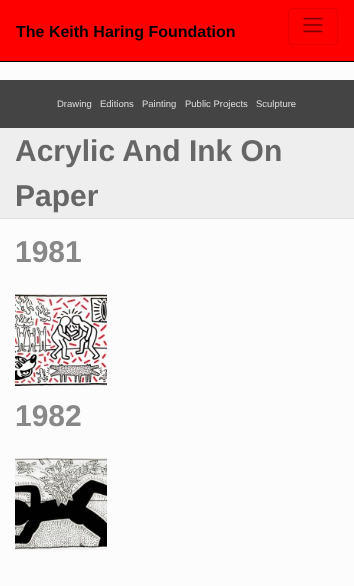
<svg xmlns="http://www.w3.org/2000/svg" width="354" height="586">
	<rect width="100%" height="100%" fill="#FCFCFC" />
	<rect x="0" y="0" width="354" height="61" fill="#FF0000" />
	<rect x="0" y="61" width="354" height="1" fill="#000000" />
	<text x="16" y="37" font-family="Liberation Sans" font-size="16" font-weight="700" fill="#000000">The Keith Haring Foundation</text>
	<rect x="288.5" y="8.5" width="49" height="36" rx="3.5" fill="none" stroke="#E60000" />
	<image x="303" y="17" width="20" height="16" href="assets/img1.png" />
	<rect x="0" y="80" width="354" height="48" fill="#444444" />
	<g font-family="Liberation Sans" font-size="9.5" fill="#DDDDDD">
		<text x="57" y="107">Drawing</text>
		<text x="100" y="107">Editions</text>
		<text x="142" y="107">Painting</text>
		<text x="185" y="107">Public Projects</text>
		<text x="256" y="107">Sculpture</text>
	</g>
	<rect x="0" y="128" width="354" height="90" fill="#EEEEEE" />
	<rect x="0" y="218" width="354" height="1" fill="#DDDDDD" />
	<g font-family="Liberation Sans" font-size="30" font-weight="700" fill="#666666">
		<text x="15" y="161">Acrylic And Ink On</text>
		<text x="15" y="206">Paper</text>
	</g>
	<text x="15" y="262" font-family="Liberation Sans" font-size="30" font-weight="700" fill="#888888">1981</text>
	<image x="15" y="294" width="92" height="92" href="assets/img2.png" />
	<text x="15" y="426" font-family="Liberation Sans" font-size="30" font-weight="700" fill="#888888">1982</text>
	<image x="15" y="458" width="92" height="92" href="assets/img3.png" />
</svg>
